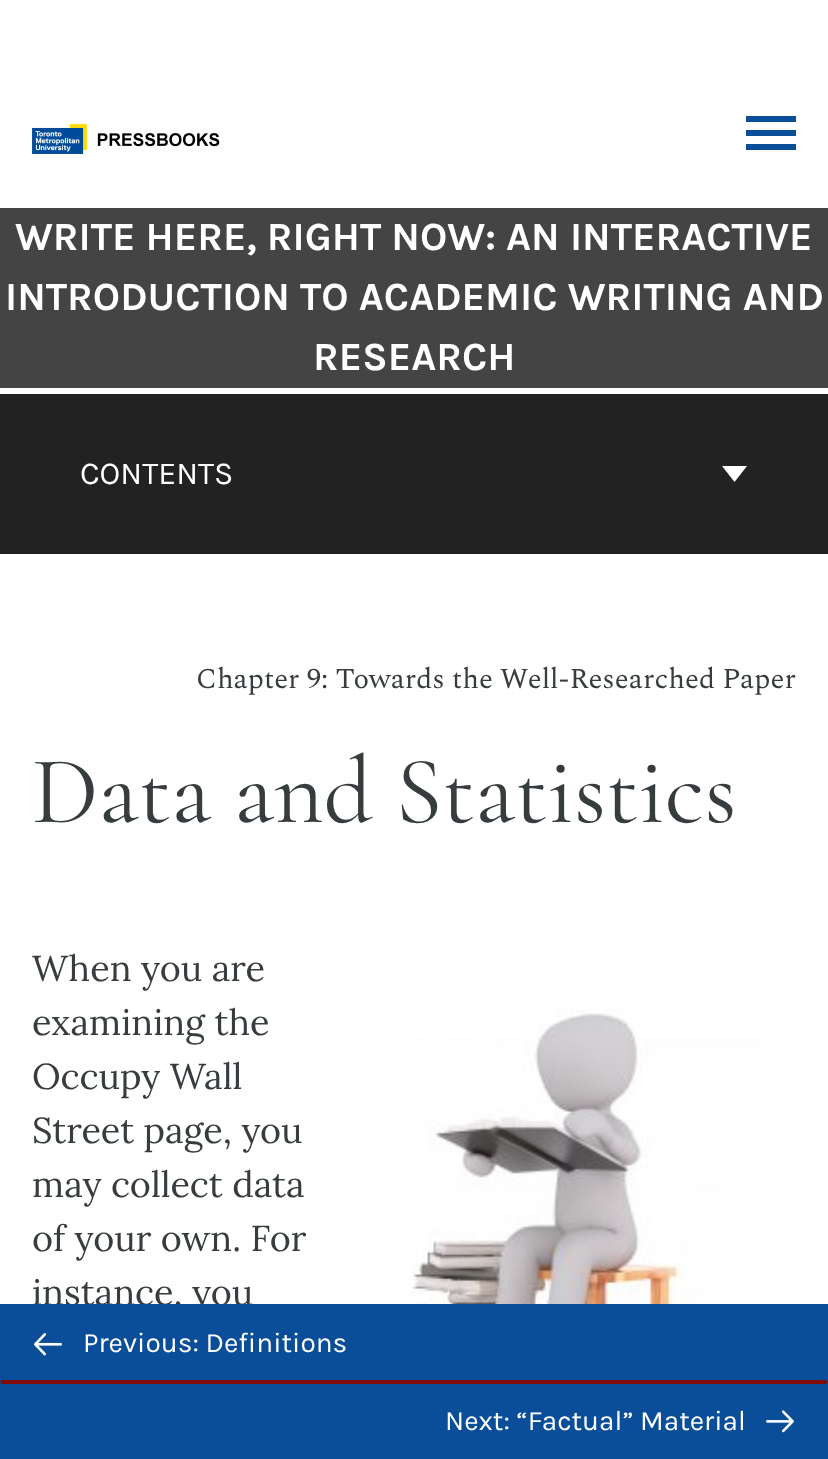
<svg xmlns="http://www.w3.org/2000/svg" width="828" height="1459">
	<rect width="100%" height="100%" fill="#FFFFFF" />
	<image x="32" y="124" width="188" height="30" href="assets/img1.png" />
	<rect x="746" y="130" width="50" height="6" fill="#0A4E99" />
	<rect x="746" y="116" width="50" height="6" fill="#0A4E99" />
	<rect x="746" y="144" width="50" height="6" fill="#0A4E99" />
	<rect x="0" y="394" width="828" height="160" fill="#222222" />
	<rect x="0" y="208" width="828" height="180" fill="#444444" />
	<g font-family="Karla" font-size="40" font-weight="700" fill="#FFFFFF">
		<text x="15" y="250">WRITE HERE, RIGHT NOW: AN INTERACTIVE</text>
		<text x="5" y="310">INTRODUCTION TO ACADEMIC WRITING AND</text>
		<text x="313" y="370">RESEARCH</text>
	</g>
	<text x="80" y="484" font-family="Karla" font-size="32" fill="#FFFFFF">CONTENTS</text>
	<path d="M734.5 482L722 466H747Z" fill="#FFFFFF" fill-rule="evenodd" />
	<text x="196" y="688" font-family="Spectral" font-size="28.8" fill="#373D3F">Chapter 9: Towards the Well-Researched Paper</text>
	<text x="32" y="822" font-family="Cormorant Garamond" font-size="96" fill="#373D3F">Data and Statistics</text>
	<g font-family="Lora" font-size="36" fill="#373D3F">
		<text x="32" y="981">When you are</text>
		<text x="32" y="1035">examining the</text>
		<text x="32" y="1089">Occupy Wall</text>
		<text x="32" y="1143">Street page, you</text>
		<text x="32" y="1197">may collect data</text>
		<text x="32" y="1251">of your own. For</text>
		<text x="32" y="1305">instance, you</text>
	</g>
	<image x="396" y="1008" width="367" height="296" href="assets/img2.png" />
	<rect x="0" y="1304" width="828" height="155" fill="#0A4E99" />
	<path d="M828 1382H0L2 1380H826Z" fill="#7F0C07" />
	<image x="34" y="1333" width="28" height="23" href="assets/img3.png" />
	<text x="83" y="1352" font-family="Karla" font-size="28" fill="#FFFFFF">Previous: Definitions</text>
	<path d="M0 1382H828L826 1384H2Z" fill="#7F0C07" />
	<text x="445" y="1430" font-family="Karla" font-size="28" fill="#FFFFFF">Next: “Factual” Material</text>
	<image x="766" y="1410" width="28" height="23" href="assets/img4.png" />
</svg>
